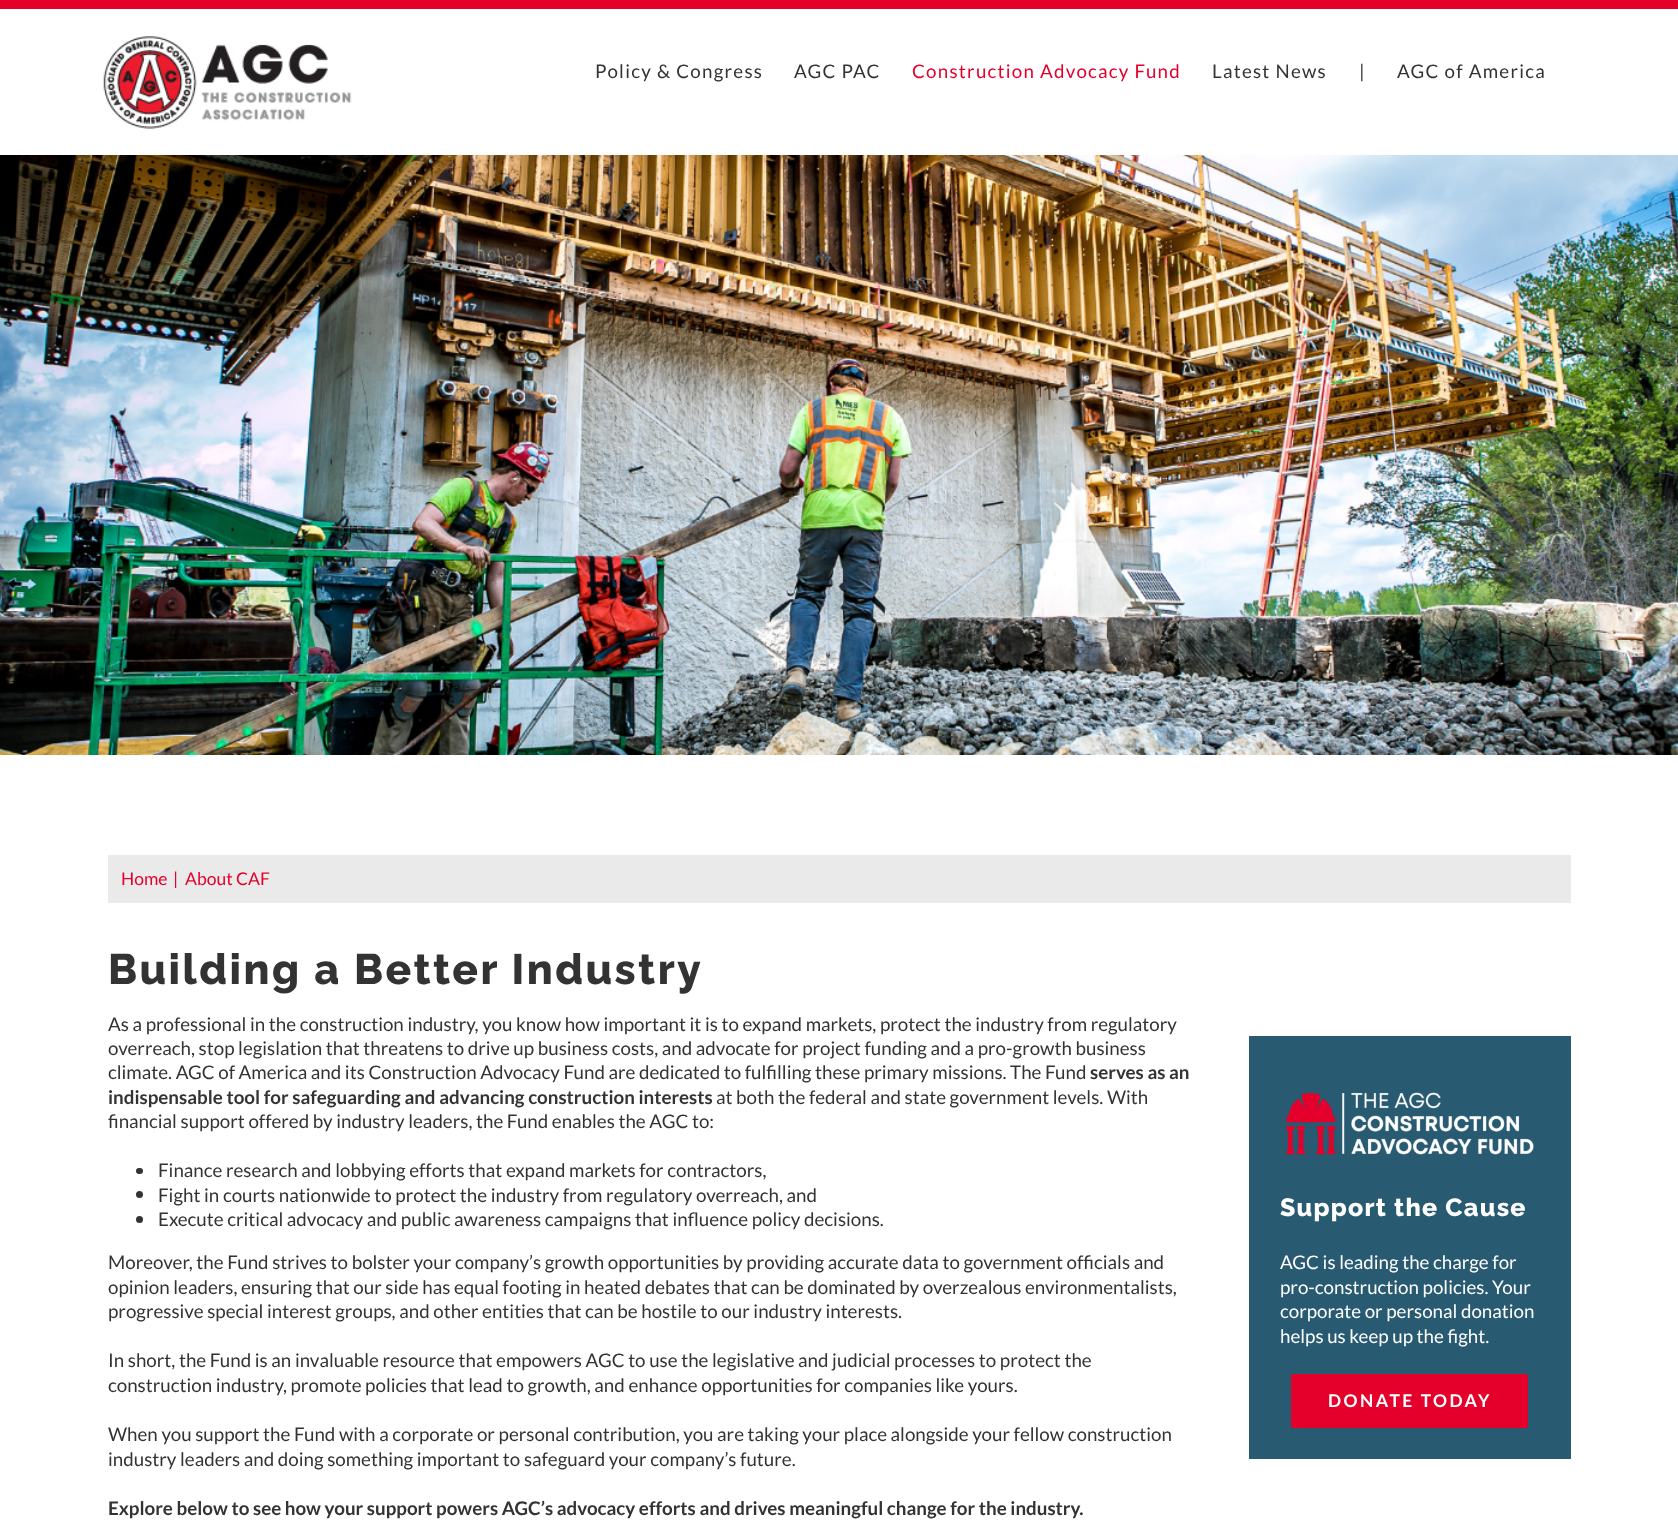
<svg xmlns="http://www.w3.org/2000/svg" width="1678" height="1520">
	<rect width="100%" height="100%" fill="#FFFFFF" />
	<rect x="0" y="0" width="1678" height="9" fill="#E4002B" />
	<image x="103" y="36" width="249" height="93" href="assets/img1.png" />
	<g font-family="Lato" font-size="18.75" letter-spacing="1.25" fill="#333333">
		<text x="595" y="78">Policy &amp; Congress</text>
		<text x="794" y="78">AGC PAC</text>
	</g>
	<text x="912" y="78" font-family="Lato" font-size="18.75" letter-spacing="1.25" fill="#E4002B">Construction Advocacy Fund</text>
	<g font-family="Lato" font-size="18.75" letter-spacing="1.25" fill="#333333">
		<text x="1212" y="78">Latest News</text>
		<text x="1359" y="78">|</text>
		<text x="1397" y="78">AGC of America</text>
	</g>
	<image x="0" y="155" width="1678" height="600" href="assets/img2.png" />
	<rect x="108" y="855" width="1463" height="48" fill="#EBEAEA" />
	<g font-family="Lato" font-size="17.5" fill="#E4002B">
		<text x="121" y="885">Home</text>
		<text x="173" y="885">|</text>
		<text x="185" y="885">About CAF</text>
	</g>
	<text x="108" y="984" font-family="Raleway" font-size="42.5" font-weight="800" letter-spacing="2.5" fill="#333333">Building a Better Industry</text>
	<g font-family="Lato" font-size="18.75" fill="#333333">
		<text x="108" y="1031">As a professional in the construction industry, you know how important it is to expand markets, protect the industry from regulatory</text>
		<text x="108" y="1055">overreach, stop legislation that threatens to drive up business costs, and advocate for project funding and a pro-growth business</text>
		<text x="108" y="1079">climate. AGC of America and its Construction Advocacy Fund are dedicated to fulfilling these primary missions. The Fund</text>
	</g>
	<g font-family="Lato" font-size="18.75" font-weight="700" fill="#333333">
		<text x="1090" y="1079">serves as an</text>
		<text x="108" y="1104">indispensable tool for safeguarding and advancing construction interests</text>
	</g>
	<g font-family="Lato" font-size="18.75" fill="#333333">
		<text x="716" y="1104">at both the federal and state government levels. With</text>
		<text x="108" y="1128">financial support offered by industry leaders, the Fund enables the AGC to:</text>
	</g>
	<rect x="136" y="1168" width="7" height="6" rx="3" fill="#333333" />
	<text x="158" y="1177" font-family="Lato" font-size="18.75" fill="#333333">Finance research and lobbying efforts that expand markets for contractors,</text>
	<circle cx="139.5" cy="1194.5" r="3.5" fill="#333333" />
	<text x="158" y="1202" font-family="Lato" font-size="18.75" fill="#333333">Fight in courts nationwide to protect the industry from regulatory overreach, and</text>
	<circle cx="139.5" cy="1219.5" r="3.5" fill="#333333" />
	<g font-family="Lato" font-size="18.75" fill="#333333">
		<text x="158" y="1226">Execute critical advocacy and public awareness campaigns that influence policy decisions.</text>
		<text x="108" y="1269">Moreover, the Fund strives to bolster your company’s growth opportunities by providing accurate data to government officials and</text>
		<text x="108" y="1294">opinion leaders, ensuring that our side has equal footing in heated debates that can be dominated by overzealous environmentalists,</text>
		<text x="108" y="1318">progressive special interest groups, and other entities that can be hostile to our industry interests.</text>
		<text x="108" y="1367">In short, the Fund is an invaluable resource that empowers AGC to use the legislative and judicial processes to protect the</text>
		<text x="108" y="1392">construction industry, promote policies that lead to growth, and enhance opportunities for companies like yours.</text>
		<text x="108" y="1441">When you support the Fund with a corporate or personal contribution, you are taking your place alongside your fellow construction</text>
		<text x="108" y="1466">industry leaders and doing something important to safeguard your company’s future.</text>
	</g>
	<text x="108" y="1515" font-family="Lato" font-size="18.75" font-weight="700" fill="#333333">Explore below to see how your support powers AGC’s advocacy efforts and drives meaningful change for the industry.</text>
	<rect x="1249" y="1036" width="322" height="423" fill="#285A71" />
	<image x="1286" y="1092" width="248" height="63" href="assets/img3.png" />
	<text x="1280" y="1216" font-family="Raleway" font-size="25" font-weight="800" letter-spacing="1.25" fill="#FFFFFF">Support the Cause</text>
	<g font-family="Lato" font-size="18.75" fill="#FFFFFF">
		<text x="1280" y="1269">AGC is leading the charge for</text>
		<text x="1280" y="1294">pro-construction policies. Your</text>
		<text x="1280" y="1318">corporate or personal donation</text>
		<text x="1280" y="1343">helps us keep up the fight.</text>
	</g>
	<rect x="1291" y="1374" width="237" height="54" rx="2.5" fill="#E4002B" />
	<text x="1328" y="1407" font-family="Lato" font-size="17.5" font-weight="700" letter-spacing="2.5" fill="#FFFFFF">DONATE TODAY</text>
</svg>
